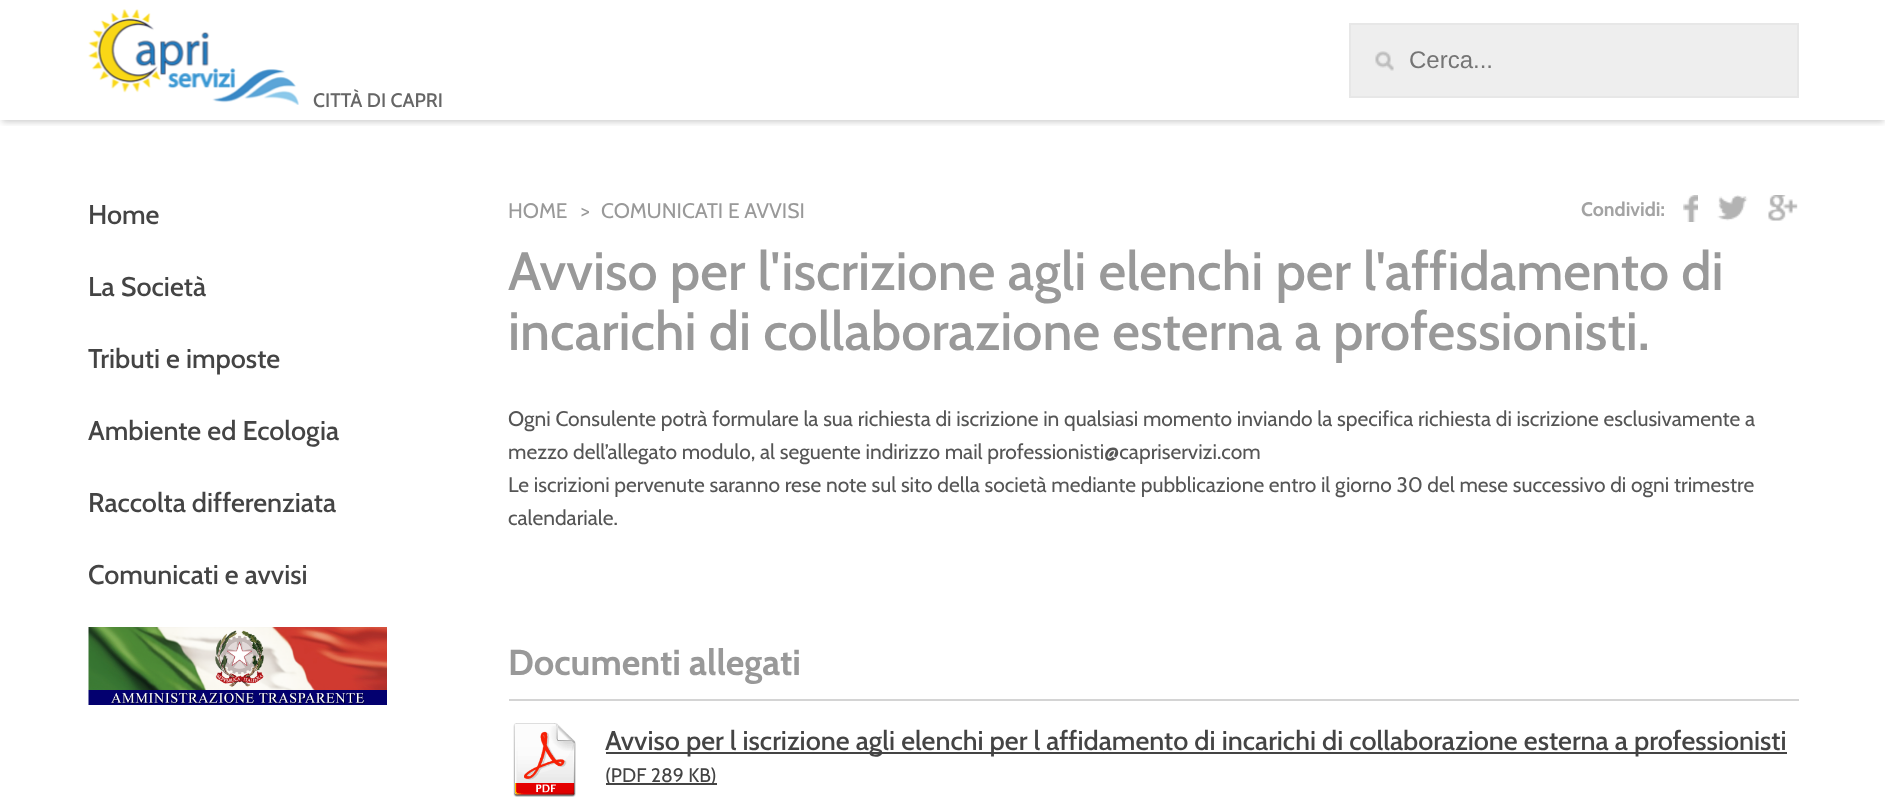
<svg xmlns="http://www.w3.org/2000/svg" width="1885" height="808">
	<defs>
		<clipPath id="clip1"><rect x="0" y="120" width="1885" height="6" /></clipPath>
	</defs>
	<rect width="100%" height="100%" fill="#FFFFFF" />
	<g clip-path="url(#clip1)">
		<rect x="2" y="5" width="1882" height="117" fill="#000000" fill-opacity="0.2" filter="blur(3px)" />
	</g>
	<image x="88" y="9" width="211" height="96" href="assets/img1.png" />
	<rect x="1350" y="24" width="448" height="73" fill="#EEEEEE" stroke="#E7E7E7" stroke-width="2" />
	<image x="1375" y="51" width="19" height="20" href="assets/img2.png" />
	<text x="1409" y="68" font-family="Liberation Sans" font-size="24" fill="#757575">Cerca...</text>
	<text x="313" y="107" font-family="Cabin" font-size="19.5" font-weight="500" fill="#666666">CITTÀ DI CAPRI</text>
	<text x="1581" y="216" font-family="Cabin" font-size="19.5" font-weight="700" fill="#A3A3A3">Condividi:</text>
	<image x="1683" y="195" width="15" height="27" href="assets/img3.png" />
	<image x="1717" y="195" width="31" height="26" href="assets/img4.png" />
	<image x="1768" y="195" width="30" height="26" href="assets/img5.png" />
	<g font-family="Cabin" font-size="27" font-weight="500" fill="#444444">
		<text x="88" y="224">Home</text>
		<text x="88" y="296">La Società</text>
		<text x="88" y="368">Tributi e imposte</text>
		<text x="88" y="440">Ambiente ed Ecologia</text>
		<text x="88" y="512">Raccolta differenziata</text>
		<text x="88" y="584">Comunicati e avvisi</text>
	</g>
	<image x="88" y="627" width="299" height="78" href="assets/img6.png" />
	<g font-family="Cabin" font-size="21" fill="#999999">
		<text x="508" y="218">HOME</text>
		<text x="581" y="218">&gt;</text>
		<text x="601" y="218">COMUNICATI E AVVISI</text>
	</g>
	<g font-family="Cabin" font-size="54" font-weight="500" fill="#999999">
		<text x="508" y="290">Avviso per l'iscrizione agli elenchi per l'affidamento di</text>
		<text x="508" y="350">incarichi di collaborazione esterna a professionisti.</text>
	</g>
	<g font-family="Cabin" font-size="21" fill="#555555">
		<text x="508" y="426">Ogni Consulente potrà formulare la sua richiesta di iscrizione in qualsiasi momento inviando la specifica richiesta di iscrizione esclusivamente a</text>
		<text x="508" y="459">mezzo dell’allegato modulo, al seguente indirizzo mail professionisti@capriservizi.com</text>
		<text x="508" y="492">Le iscrizioni pervenute saranno rese note sul sito della società mediante pubblicazione entro il giorno 30 del mese successivo di ogni trimestre</text>
		<text x="508" y="525">calendariale.</text>
	</g>
	<rect x="509" y="699" width="1290" height="2" fill="#D4D4D4" />
	<text x="508" y="675" font-family="Cabin" font-size="36" font-weight="700" fill="#999999">Documenti allegati</text>
	<image x="513" y="723" width="63" height="74" href="assets/img7.png" />
	<rect x="606" y="752" width="1181" height="2" fill="#444444" />
	<text x="605" y="750" font-family="Cabin" font-size="27" font-weight="500" fill="#444444">Avviso per l iscrizione agli elenchi per l affidamento di incarichi di collaborazione esterna a professionisti</text>
	<rect x="606" y="783" width="111" height="2" fill="#444444" />
	<text x="605" y="782" font-family="Cabin" font-size="19.5" fill="#444444">(PDF 289 KB)</text>
</svg>
